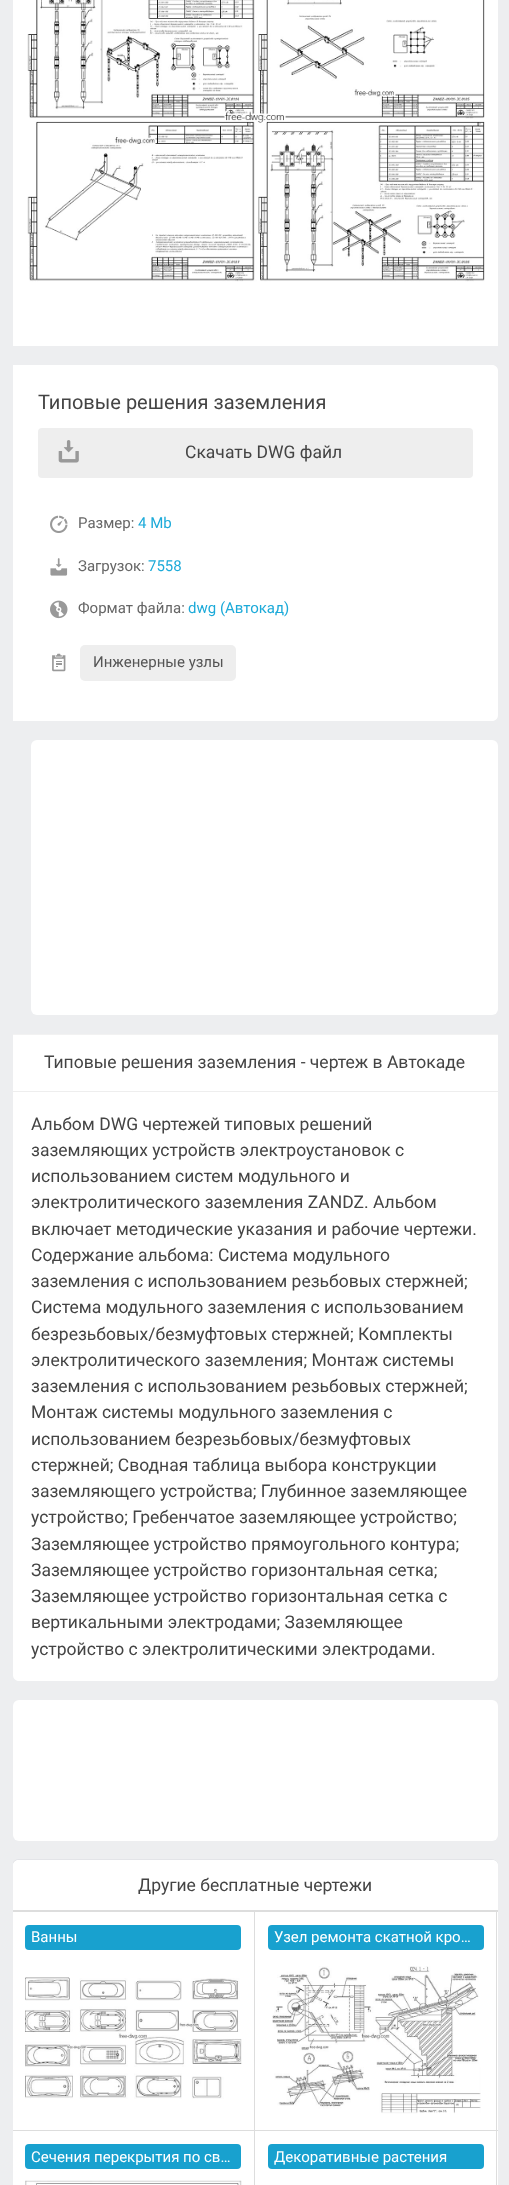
<svg xmlns="http://www.w3.org/2000/svg" width="509" height="2185">
	<defs>
		<clipPath id="clip1"><rect x="13" y="0" width="485" height="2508" /></clipPath>
	</defs>
	<rect width="100%" height="100%" fill="#EDEEF0" />
	<rect x="13" y="0" width="485" height="346" fill="#FFFFFF" />
	<image x="27" y="0" width="458" height="282" href="assets/img1.png" />
	<path d="M13 365H492C495.5 365 498 367.5 498 371V715C498 718.5 495.5 721 492 721H13Z" fill="#FFFFFF" />
	<text x="38" y="409" font-family="Roboto" font-size="20" fill="#444444">Типовые решения заземления</text>
	<rect x="38" y="428" width="435" height="50" rx="4" fill="#EEEEEE" />
	<image x="58" y="440" width="21" height="23" href="assets/img2.png" />
	<text x="185" y="458" font-family="Roboto" font-size="17.5" fill="#444444">Скачать DWG файл</text>
	<image x="50" y="515" width="18" height="18" href="assets/img3.png" />
	<text x="78" y="528" font-family="Roboto" font-size="15" fill="#666666">Размер:</text>
	<text x="138" y="528" font-family="Roboto" font-size="15" fill="#1CAAD9">4 Mb</text>
	<image x="50" y="558" width="18" height="18" href="assets/img4.png" />
	<text x="78" y="571" font-family="Roboto" font-size="15" fill="#666666">Загрузок:</text>
	<text x="148" y="571" font-family="Roboto" font-size="15" fill="#1CAAD9">7558</text>
	<image x="50" y="600" width="18" height="19" href="assets/img5.png" />
	<text x="78" y="613" font-family="Roboto" font-size="15" fill="#666666">Формат файла:</text>
	<text x="188" y="613" font-family="Roboto" font-size="15" fill="#1CAAD9">dwg (Автокад)</text>
	<image x="52" y="653" width="14" height="19" href="assets/img6.png" />
	<rect x="80" y="645" width="156" height="36" rx="5" fill="#EEEEEE" />
	<text x="93" y="667" font-family="Roboto" font-size="15" fill="#555555">Инженерные узлы</text>
	<rect x="31" y="740" width="467" height="275" rx="6" fill="#FFFFFF" />
	<path d="M13 1034H498V1675C498 1678.5 495.5 1681 492 1681H19C15.5 1681 13 1678.5 13 1675Z" fill="#FFFFFF" />
	<rect x="13" y="1034" width="485" height="1" fill="#F2F2F2" />
	<rect x="13" y="1091" width="485" height="1" fill="#EEEEEE" />
	<g font-family="Roboto" font-size="17.5" fill="#444444">
		<text x="44" y="1068">Типовые решения заземления - чертеж в Автокаде</text>
		<text x="31" y="1130">Альбом DWG чертежей типовых решений</text>
		<text x="31" y="1156">заземляющих устройств электроустановок с</text>
		<text x="31" y="1182">использованием систем модульного и</text>
		<text x="31" y="1208">электролитического заземления ZANDZ. Альбом</text>
		<text x="31" y="1235">включает методические указания и рабочие чертежи.</text>
		<text x="31" y="1261">Содержание альбома: Система модульного</text>
		<text x="31" y="1287">заземления с использованием резьбовых стержней;</text>
		<text x="31" y="1313">Система модульного заземления с использованием</text>
		<text x="31" y="1340">безрезьбовых/безмуфтовых стержней; Комплекты</text>
		<text x="31" y="1366">электролитического заземления; Монтаж системы</text>
		<text x="31" y="1392">заземления с использованием резьбовых стержней;</text>
		<text x="31" y="1418">Монтаж системы модульного заземления с</text>
		<text x="31" y="1445">использованием безрезьбовых/безмуфтовых</text>
		<text x="31" y="1471">стержней; Сводная таблица выбора конструкции</text>
		<text x="31" y="1497">заземляющего устройства; Глубинное заземляющее</text>
		<text x="31" y="1523">устройство; Гребенчатое заземляющее устройство;</text>
		<text x="31" y="1550">Заземляющее устройство прямоугольного контура;</text>
		<text x="31" y="1576">Заземляющее устройство горизонтальная сетка;</text>
		<text x="31" y="1602">Заземляющее устройство горизонтальная сетка с</text>
		<text x="31" y="1628">вертикальными электродами; Заземляющее</text>
		<text x="31" y="1655">устройство с электролитическими электродами.</text>
	</g>
	<rect x="13" y="1700" width="485" height="141" rx="6" fill="#FFFFFF" />
	<g clip-path="url(#clip1)">
		<rect x="11.5" y="1859.5" width="487" height="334" rx="7.5" fill="none" stroke="#E3E4E8" />
	</g>
	<rect x="13" y="1860" width="485" height="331" rx="6" fill="#FFFFFF" />
	<path d="M19 1860H492C495.5 1860 498 1862.5 498 1866V1911H13V1866C13 1862.5 15.5 1860 19 1860Z" fill="#FFFFFF" />
	<rect x="13" y="1910" width="485" height="1" fill="#DDDDDD" />
	<text x="138" y="1891" font-family="Roboto" font-size="17.5" fill="#444444">Другие бесплатные чертежи</text>
	<rect x="13" y="1911" width="485" height="1" fill="#DDDDDD" />
	<rect x="254" y="1911" width="1" height="219" fill="#DDDDDD" />
	<rect x="25" y="1925" width="216" height="25" rx="4" fill="#18A1CF" />
	<text x="31" y="1942" font-family="Roboto" font-size="15" fill="#FFFFFF">Ванны</text>
	<image x="25" y="1977" width="217" height="122" href="assets/img7.png" />
	<rect x="496" y="1911" width="1" height="219" fill="#DDDDDD" />
	<rect x="268" y="1925" width="216" height="25" rx="4" fill="#18A1CF" />
	<text x="274" y="1942" font-family="Roboto" font-size="15" fill="#FFFFFF">Узел ремонта скатной кро…</text>
	<image x="272" y="1966" width="209" height="148" href="assets/img8.png" />
	<rect x="13" y="2130" width="485" height="1" fill="#DDDDDD" />
	<rect x="254" y="2130" width="1" height="55" fill="#DDDDDD" />
	<rect x="25" y="2144" width="216" height="25" rx="4" fill="#18A1CF" />
	<text x="31" y="2162" font-family="Roboto" font-size="15" fill="#FFFFFF">Сечения перекрытия по св…</text>
	<image x="25" y="2180" width="217" height="5" href="assets/img9.png" />
	<rect x="496" y="2130" width="1" height="55" fill="#DDDDDD" />
	<rect x="268" y="2144" width="216" height="25" rx="4" fill="#18A1CF" />
	<text x="274" y="2162" font-family="Roboto" font-size="15" fill="#FFFFFF">Декоративные растения</text>
</svg>
